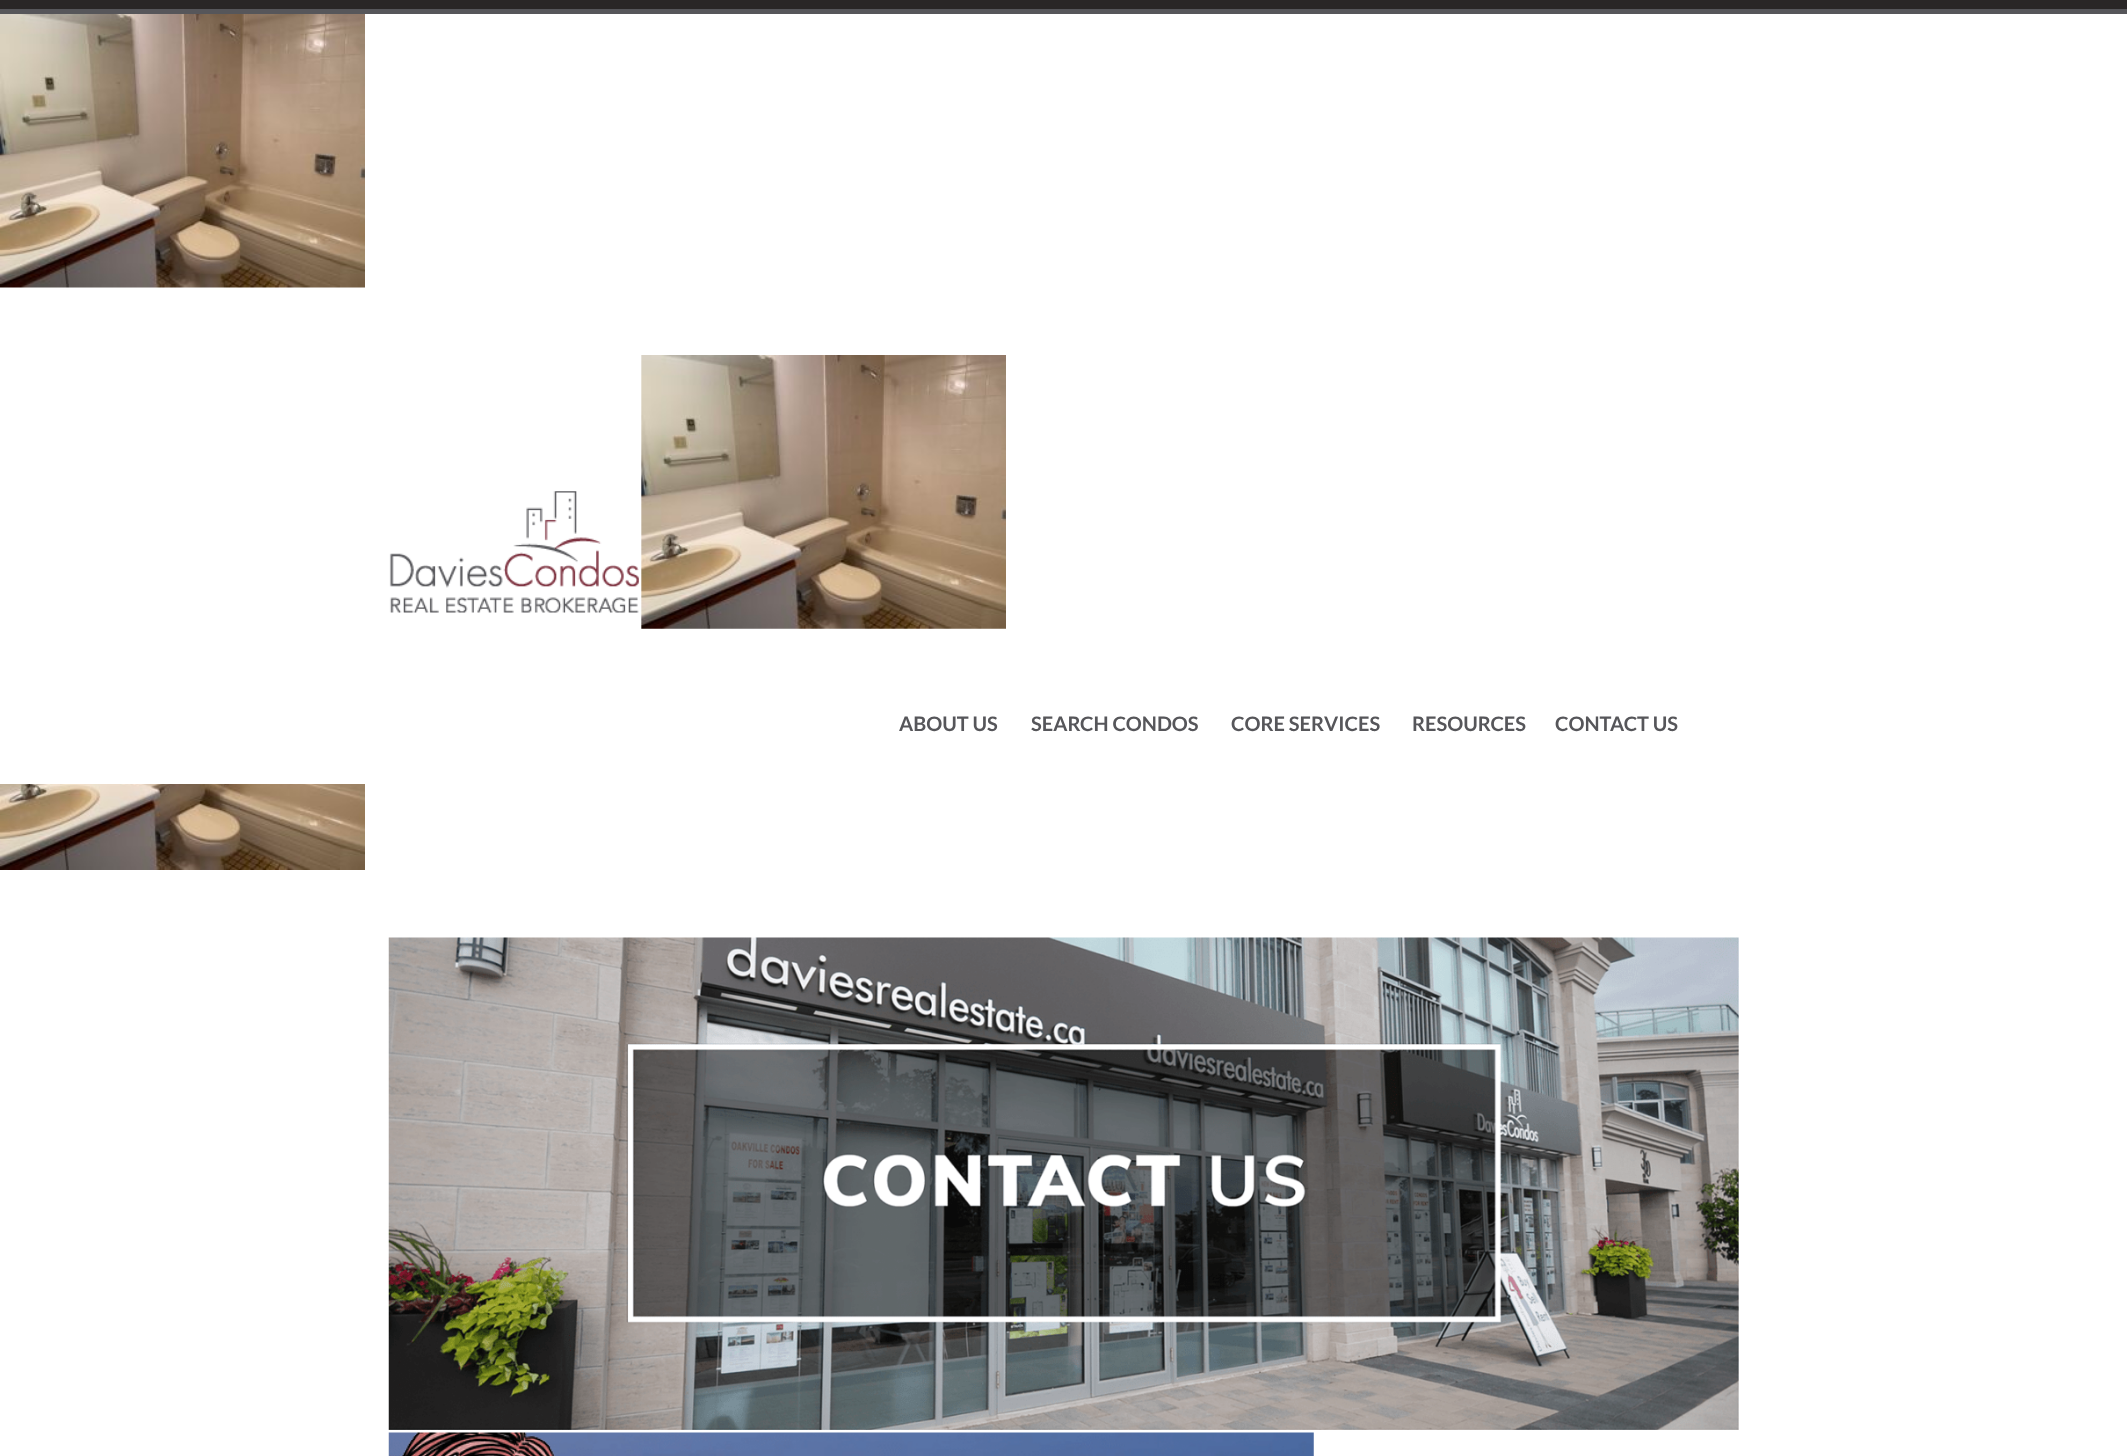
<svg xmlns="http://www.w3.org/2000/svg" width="2127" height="1456">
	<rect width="100%" height="100%" fill="#FFFFFF" />
	<rect x="0" y="0" width="2127" height="9" fill="#292626" />
	<rect x="0" y="9" width="2127" height="5" fill="#56565A" />
	<image x="0" y="14" width="365" height="274" href="assets/img1.png" />
	<image x="389" y="491" width="250" height="122" href="assets/img2.png" />
	<image x="641" y="355" width="365" height="274" href="assets/img3.png" />
	<g font-family="Lato" font-size="20" font-weight="700" fill="#56565A">
		<text x="899" y="731">ABOUT US</text>
		<text x="1031" y="731">SEARCH CONDOS</text>
		<text x="1231" y="731">CORE SERVICES</text>
		<text x="1412" y="731">RESOURCES</text>
		<text x="1555" y="731">CONTACT US</text>
	</g>
	<image x="0" y="784" width="365" height="86" href="assets/img4.png" />
	<image x="388" y="937" width="1351" height="493" href="assets/img5.png" />
	<image x="388" y="1432" width="926" height="24" href="assets/img6.png" />
</svg>
